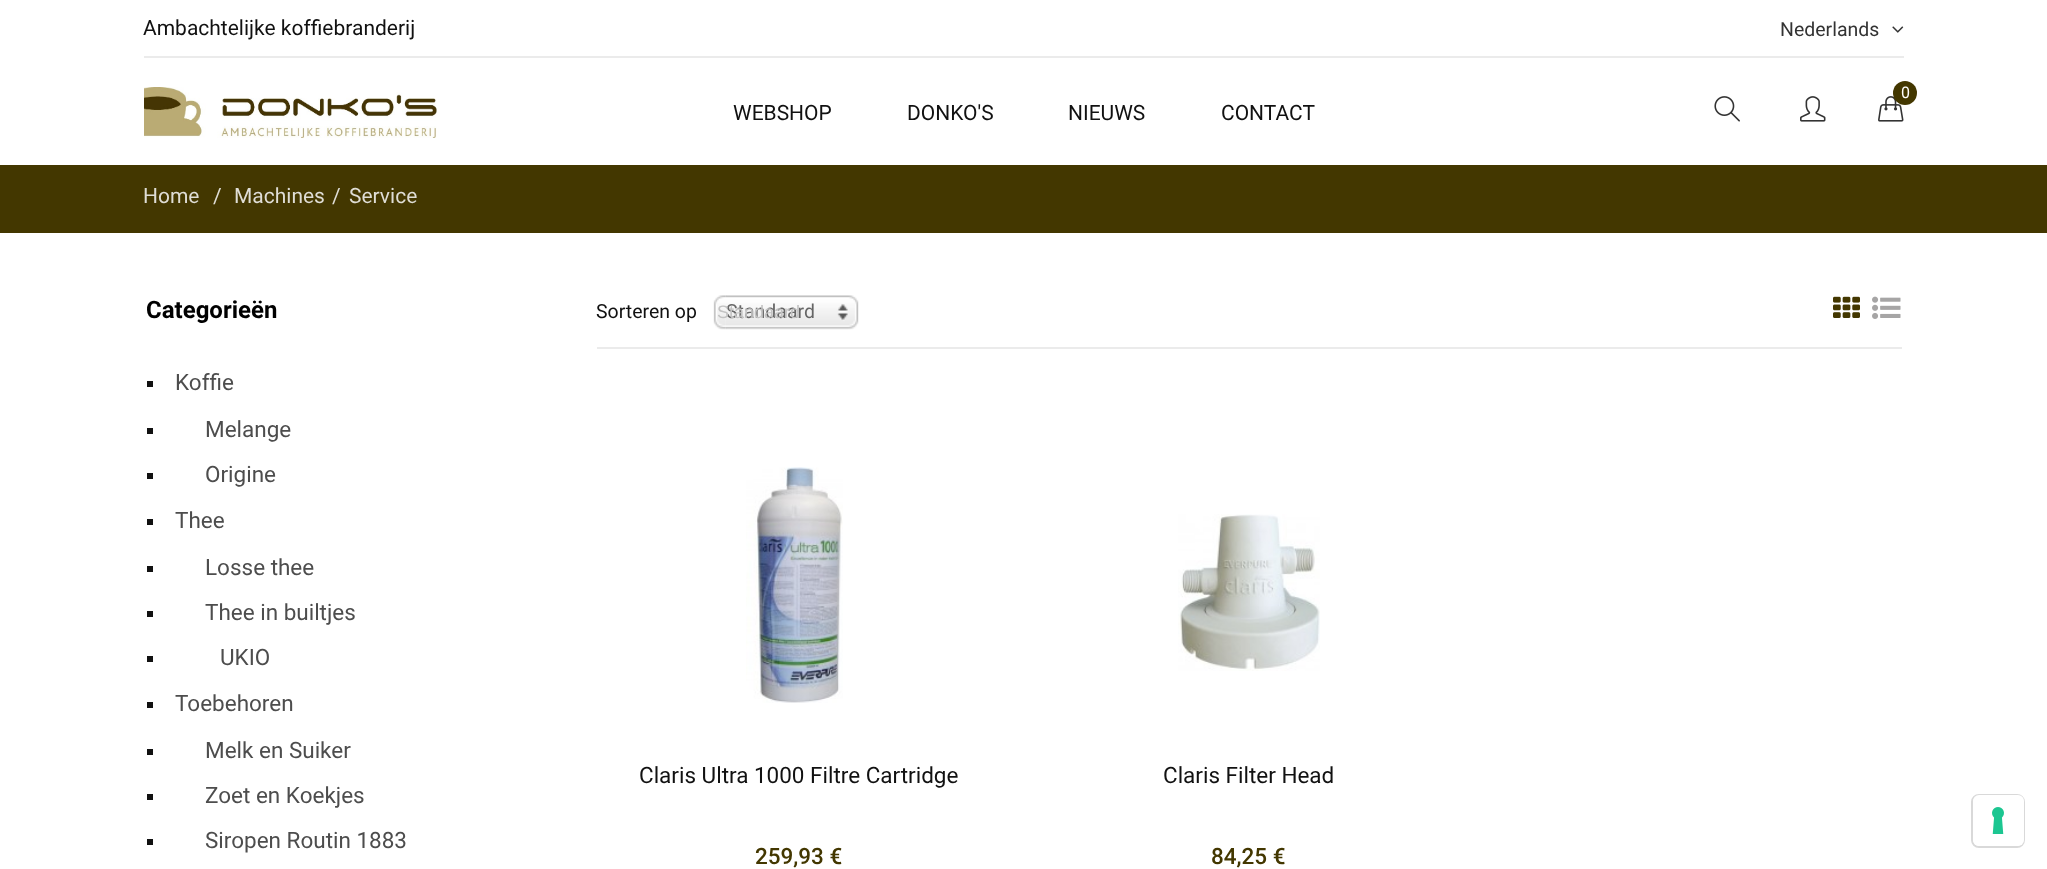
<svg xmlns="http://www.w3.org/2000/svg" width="2047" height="869">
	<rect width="100%" height="100%" fill="#FFFFFF" />
	<rect x="144" y="56" width="1760" height="2" fill="#EBEBEB" />
	<text x="143" y="35" font-family="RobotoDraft" font-size="21" fill="#111111">Ambachtelijke koffiebranderij</text>
	<text x="1780" y="36" font-family="RobotoDraft" font-size="19.5" fill="#333333">Nederlands</text>
	<image x="1892" y="26" width="12" height="7" href="assets/img1.png" />
	<image x="144" y="87" width="293" height="51" href="assets/img2.png" />
	<g font-family="RobotoDraft" font-size="21" fill="#111111">
		<text x="733" y="120">WEBSHOP</text>
		<text x="907" y="120">DONKO'S</text>
		<text x="1068" y="120">NIEUWS</text>
		<text x="1221" y="120">CONTACT</text>
	</g>
	<image x="1878" y="96" width="26" height="26" href="assets/img3.png" />
	<circle cx="1905" cy="93" r="12" fill="#433700" />
	<text x="1901" y="98" font-family="RobotoDraft" font-size="16" fill="#FFFFFF">0</text>
	<image x="1714" y="96" width="26" height="26" href="assets/img4.png" />
	<image x="1800" y="96" width="26" height="26" href="assets/img5.png" />
	<rect x="0" y="165" width="2047" height="68" fill="#433700" />
	<g font-family="RobotoDraft" font-size="21" fill="#DFDDD5">
		<text x="143" y="203">Home</text>
		<text x="213" y="203">/</text>
		<text x="234" y="203">Machines</text>
		<text x="332" y="203">/</text>
		<text x="349" y="203">Service</text>
	</g>
	<text x="146" y="318" font-family="RobotoDraft" font-size="24" font-weight="700" fill="#000000">Categorieën</text>
	<rect x="147" y="381" width="6" height="6" fill="#111111" />
	<text x="175" y="390" font-family="RobotoDraft" font-size="22.5" fill="#4D4D4D">Koffie</text>
	<rect x="147" y="428" width="6" height="6" fill="#111111" />
	<text x="205" y="437" font-family="RobotoDraft" font-size="22.5" fill="#4D4D4D">Melange</text>
	<rect x="147" y="473" width="6" height="6" fill="#111111" />
	<text x="205" y="482" font-family="RobotoDraft" font-size="22.5" fill="#4D4D4D">Origine</text>
	<rect x="147" y="519" width="6" height="6" fill="#111111" />
	<text x="175" y="528" font-family="RobotoDraft" font-size="22.5" fill="#4D4D4D">Thee</text>
	<rect x="147" y="566" width="6" height="6" fill="#111111" />
	<text x="205" y="575" font-family="RobotoDraft" font-size="22.5" fill="#4D4D4D">Losse thee</text>
	<rect x="147" y="611" width="6" height="6" fill="#111111" />
	<text x="205" y="620" font-family="RobotoDraft" font-size="22.5" fill="#4D4D4D">Thee in builtjes</text>
	<rect x="147" y="656" width="6" height="6" fill="#111111" />
	<text x="220" y="665" font-family="RobotoDraft" font-size="22.5" fill="#4D4D4D">UKIO</text>
	<rect x="147" y="702" width="6" height="6" fill="#111111" />
	<text x="175" y="711" font-family="RobotoDraft" font-size="22.5" fill="#4D4D4D">Toebehoren</text>
	<rect x="147" y="749" width="6" height="6" fill="#111111" />
	<text x="205" y="758" font-family="RobotoDraft" font-size="22.5" fill="#4D4D4D">Melk en Suiker</text>
	<rect x="147" y="794" width="6" height="6" fill="#111111" />
	<text x="205" y="803" font-family="RobotoDraft" font-size="22.5" fill="#4D4D4D">Zoet en Koekjes</text>
	<rect x="147" y="839" width="6" height="6" fill="#111111" />
	<text x="205" y="848" font-family="RobotoDraft" font-size="22.5" fill="#4D4D4D">Siropen Routin 1883</text>
	<rect x="597" y="347" width="1305" height="2" fill="#EBEBEB" />
	<text x="596" y="318" font-family="RobotoDraft" font-size="19.5" fill="#111111">Sorteren op</text>
	<image x="713" y="295" width="14" height="35" href="assets/img6.png" />
	<image x="726" y="295" width="133" height="35" href="assets/img7.png" />
	<text x="726" y="318" font-family="RobotoDraft" font-size="19.5" fill="#666666">Standaard</text>
	<text x="717" y="318" font-family="Liberation Sans" font-size="18" fill="#C3C3C3">Standaard</text>
	<image x="1833" y="296" width="27" height="22" href="assets/img8.png" />
	<image x="1872" y="296" width="29" height="23" href="assets/img9.png" />
	<image x="746" y="467" width="97" height="236" href="assets/img10.png" />
	<text x="639" y="783" font-family="RobotoDraft" font-size="22.5" fill="#111111">Claris Ultra 1000 Filtre Cartridge</text>
	<text x="755" y="864" font-family="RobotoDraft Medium" font-size="22.5" font-weight="500" fill="#433700">259,93 €</text>
	<image x="1178" y="514" width="142" height="157" href="assets/img11.png" />
	<text x="1163" y="783" font-family="RobotoDraft" font-size="22.5" fill="#111111">Claris Filter Head</text>
	<text x="1211" y="864" font-family="RobotoDraft Medium" font-size="22.5" font-weight="500" fill="#433700">84,25 €</text>
	<rect x="1972" y="795" width="52" height="52" rx="7" fill="none" stroke="#D9D9D9" stroke-width="2" />
	<rect x="1973" y="795" width="51" height="51" rx="6" fill="#FFFFFF" />
	<image x="1992" y="807" width="12" height="27" href="assets/img12.png" />
</svg>
